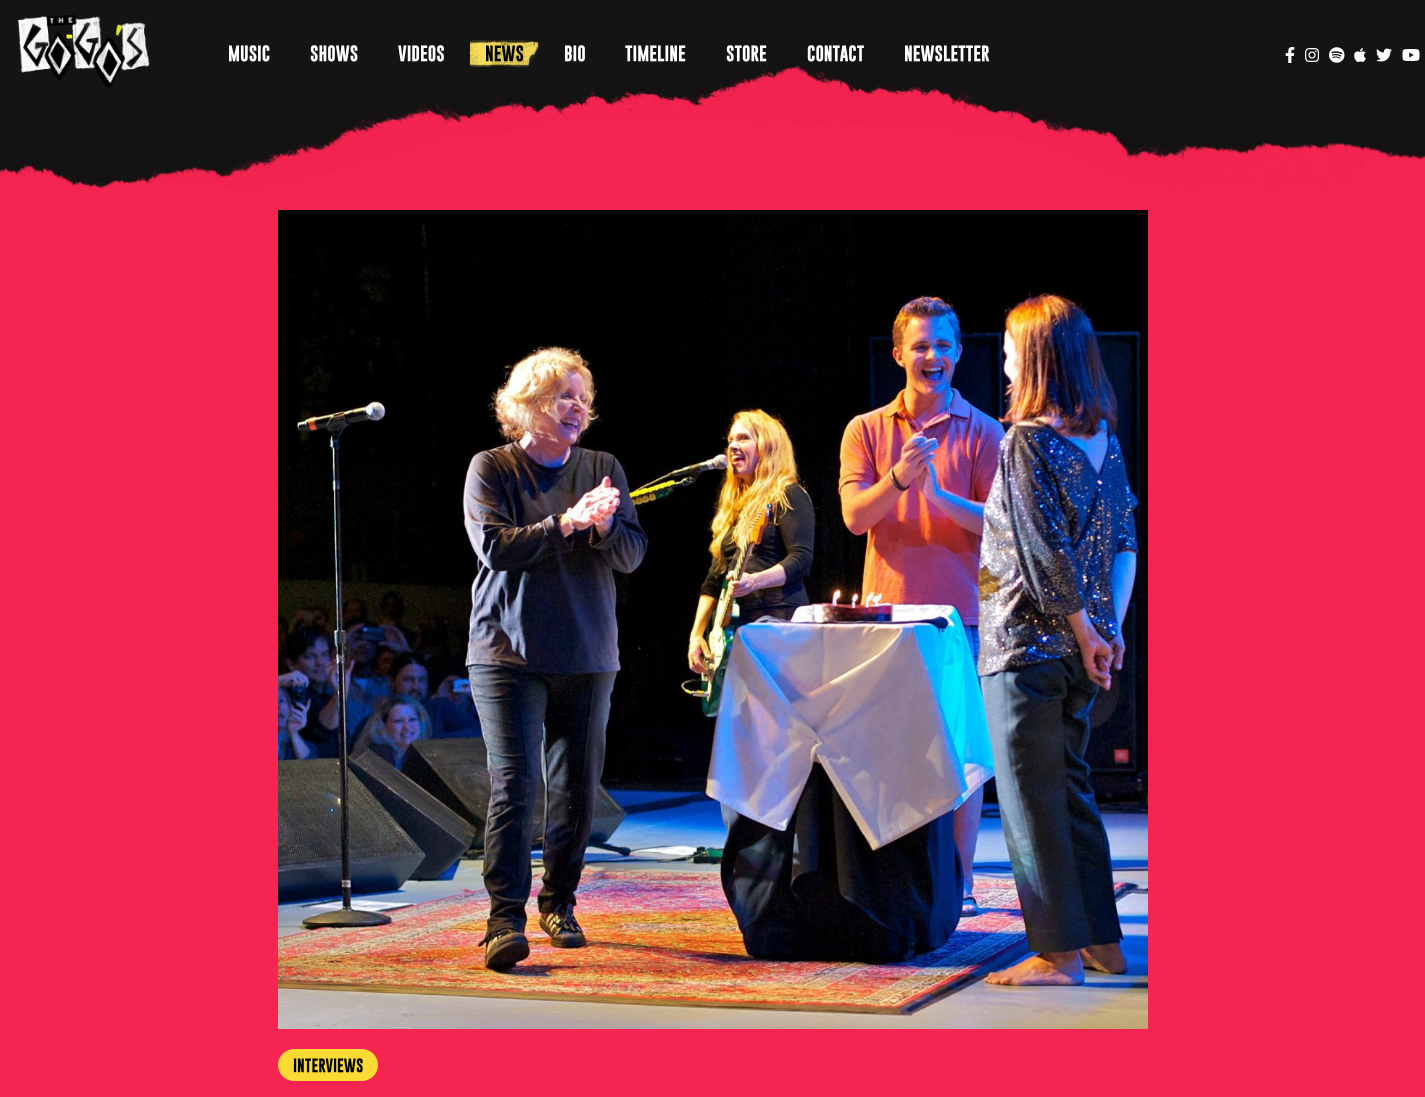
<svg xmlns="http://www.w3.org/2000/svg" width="1425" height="1097">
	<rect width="100%" height="100%" fill="#F52450" />
	<image x="0" y="0" width="1425" height="189" href="assets/img1.png" />
	<image x="18" y="15" width="132" height="73" href="assets/img2.png" />
	<g font-family="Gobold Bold" font-size="16" font-weight="700" fill="#FFFFFF">
		<text x="228" y="61">MUSIC</text>
		<text x="310" y="61">SHOWS</text>
		<text x="398" y="61">VIDEOS</text>
	</g>
	<image x="470" y="40" width="69" height="27" href="assets/img3.png" />
	<text x="485" y="61" font-family="Gobold Bold" font-size="16" font-weight="700" fill="#000000">NEWS</text>
	<g font-family="Gobold Bold" font-size="16" font-weight="700" fill="#FFFFFF">
		<text x="564" y="61">BIO</text>
		<text x="625" y="61">TIMELINE</text>
		<text x="726" y="61">STORE</text>
		<text x="807" y="61">CONTACT</text>
		<text x="904" y="61">NEWSLETTER</text>
	</g>
	<image x="1285" y="47" width="10" height="16" href="assets/img4.png" />
	<image x="1305" y="48" width="15" height="14" href="assets/img5.png" />
	<image x="1329" y="47" width="16" height="16" href="assets/img6.png" />
	<image x="1354" y="48" width="12" height="14" href="assets/img7.png" />
	<image x="1376" y="48" width="16" height="14" href="assets/img8.png" />
	<image x="1402" y="49" width="18" height="12" href="assets/img9.png" />
	<image x="278" y="210" width="870" height="819" href="assets/img10.png" />
	<rect x="278" y="1049" width="100" height="32" rx="16" fill="#FBDA34" />
	<text x="293" y="1072" font-family="Gobold Bold" font-size="14" font-weight="700" fill="#000000">INTERVIEWS</text>
</svg>
